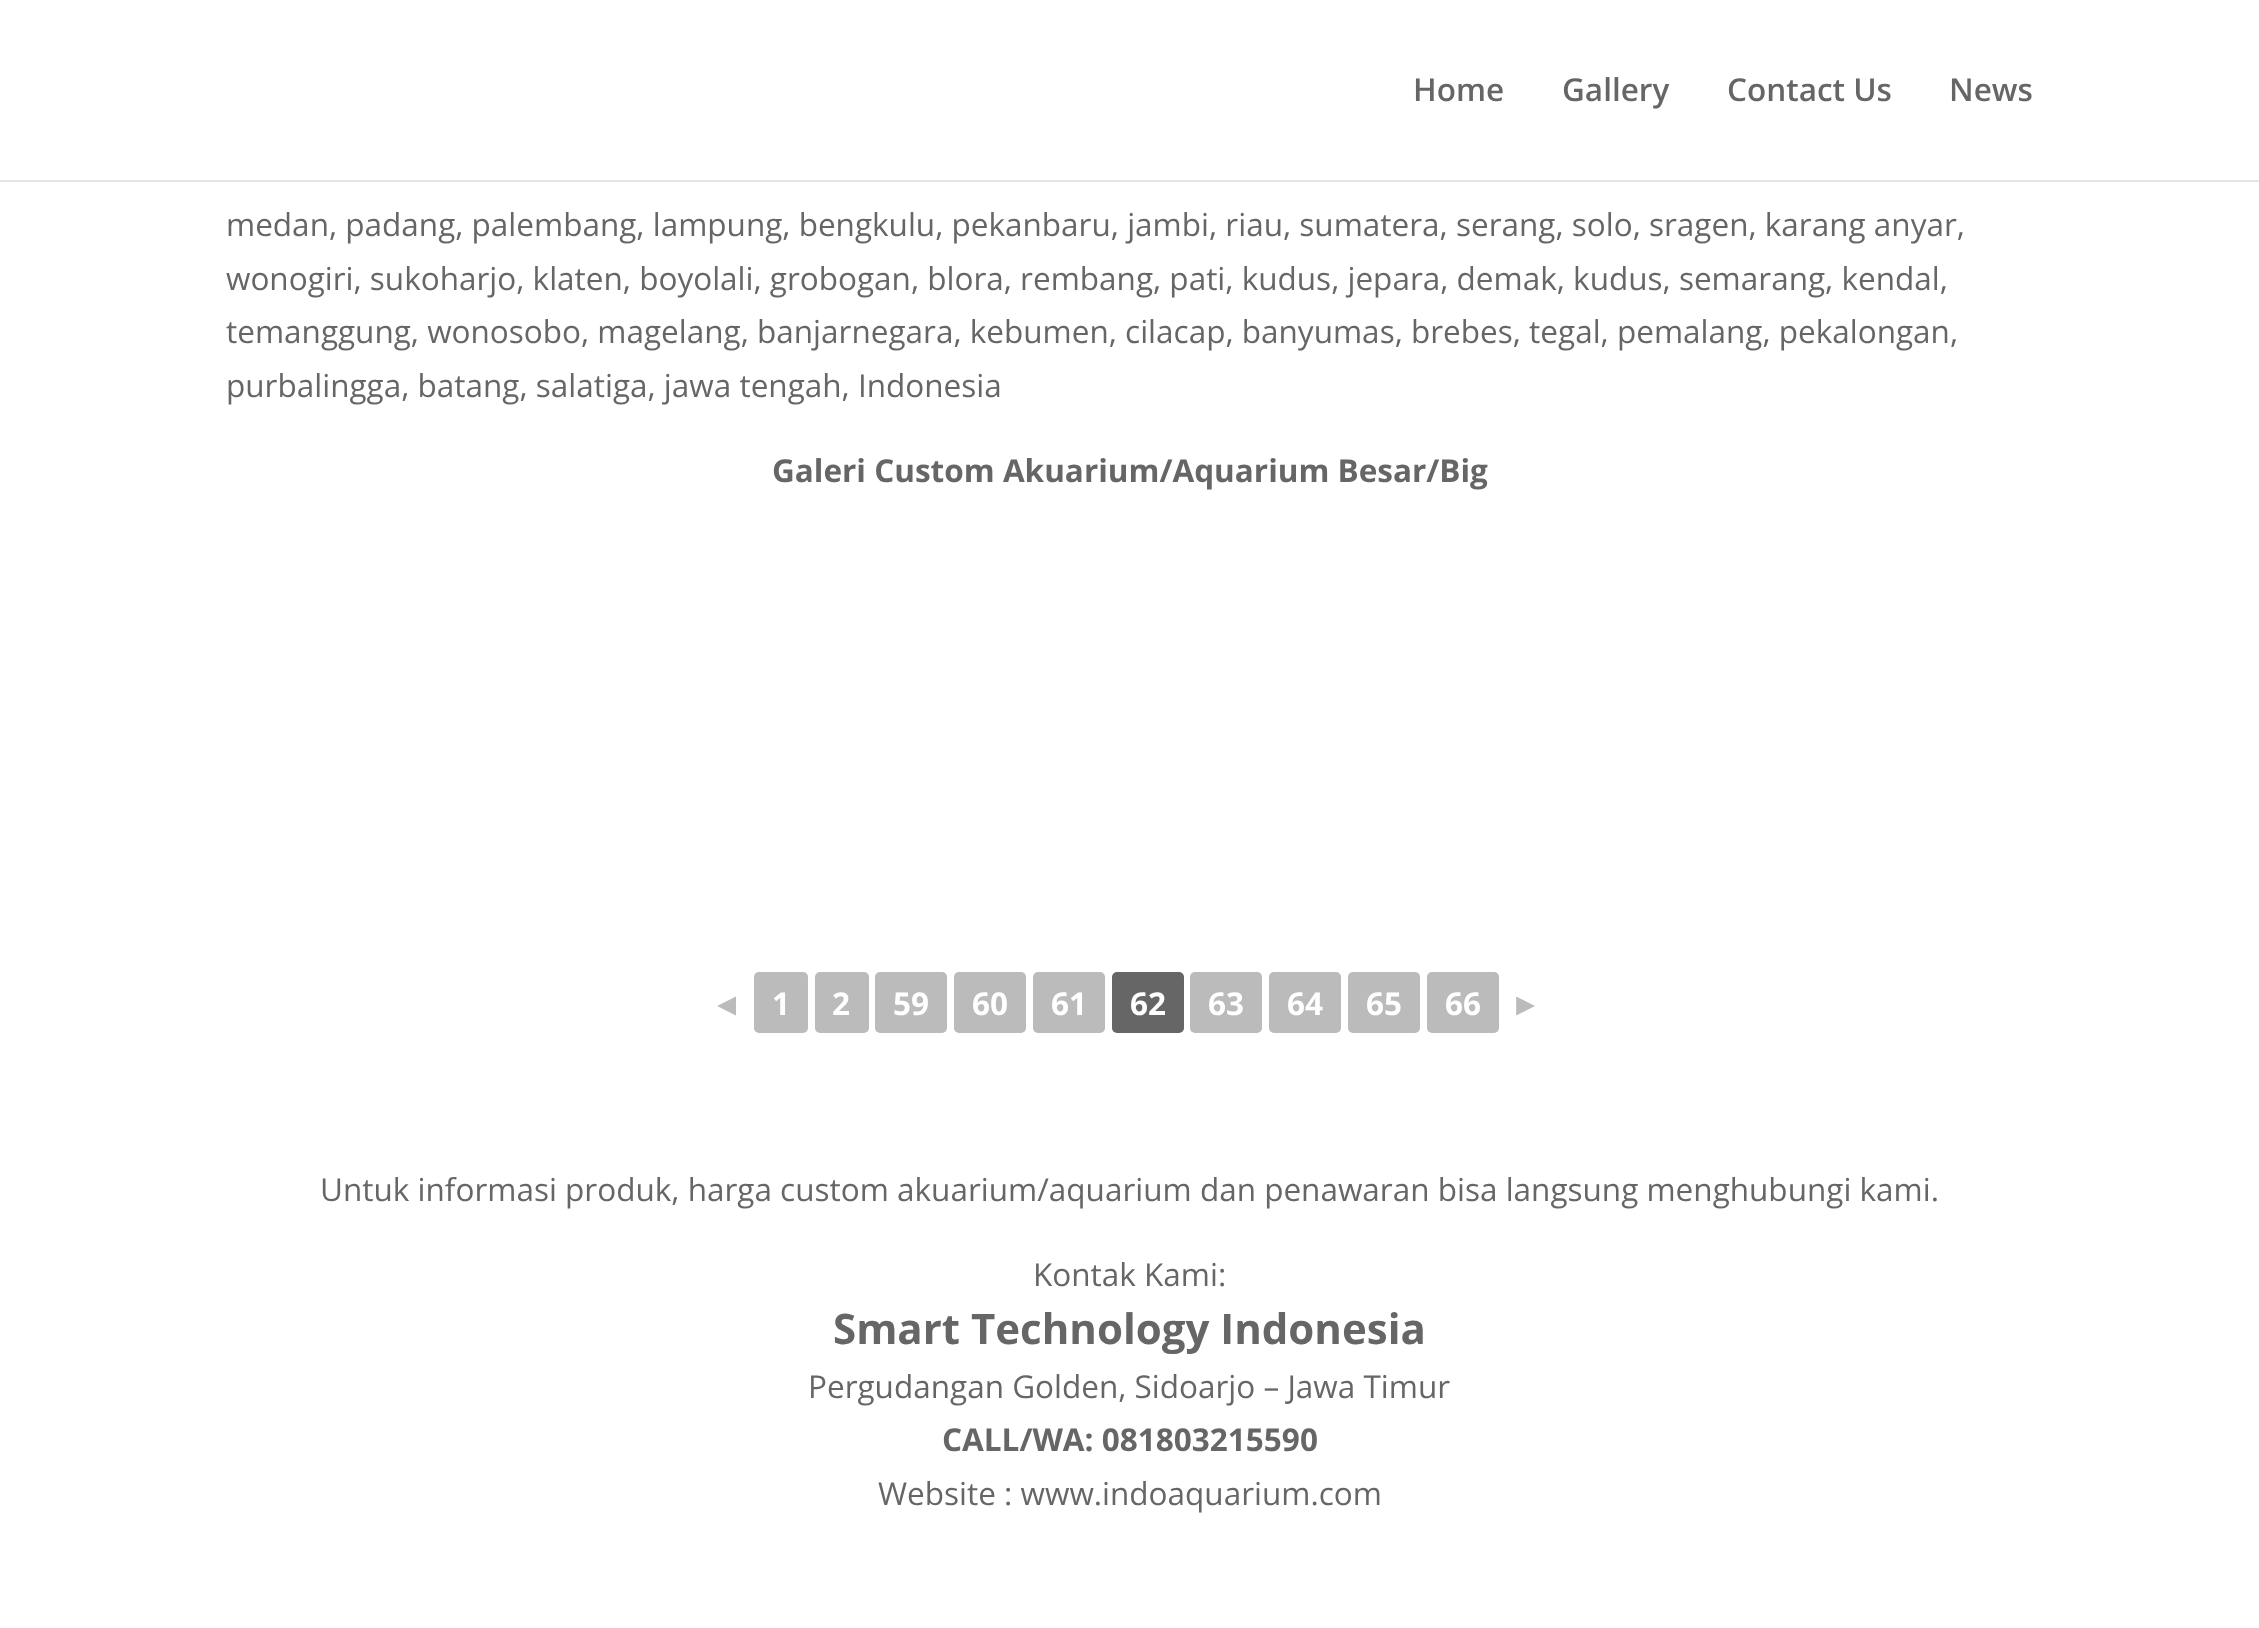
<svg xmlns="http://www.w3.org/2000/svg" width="2259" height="1628">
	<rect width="100%" height="100%" fill="#FFFFFF" />
	<rect x="0" y="180" width="2259" height="2" fill="#000000" fill-opacity="0.1" />
	<g font-family="Open Sans" font-size="31.5" font-weight="600" fill="#666666">
		<text x="1413" y="101">Home</text>
		<text x="1562" y="101">Gallery</text>
		<text x="1727" y="101">Contact Us</text>
		<text x="1949" y="101">News</text>
	</g>
	<g font-family="Open Sans" font-size="31.5" fill="#666666">
		<text x="226" y="236">medan, padang, palembang, lampung, bengkulu, pekanbaru, jambi, riau, sumatera, serang, solo, sragen, karang anyar,</text>
		<text x="226" y="290">wonogiri, sukoharjo, klaten, boyolali, grobogan, blora, rembang, pati, kudus, jepara, demak, kudus, semarang, kendal,</text>
		<text x="226" y="343">temanggung, wonosobo, magelang, banjarnegara, kebumen, cilacap, banyumas, brebes, tegal, pemalang, pekalongan,</text>
		<text x="226" y="397">purbalingga, batang, salatiga, jawa tengah, Indonesia</text>
	</g>
	<text x="772" y="482" font-family="Open Sans" font-size="31.5" font-weight="700" fill="#666666">Galeri Custom Akuarium/Aquarium Besar/Big</text>
	<text x="711" y="1015" font-family="Liberation Sans" font-size="31.5" font-weight="700" fill="#BBBBBB">◄</text>
	<rect x="754" y="972" width="54" height="61" rx="5" fill="#BBBBBB" />
	<text x="772" y="1015" font-family="Open Sans" font-size="31.5" font-weight="700" fill="#FFFFFF">1</text>
	<rect x="815" y="972" width="54" height="61" rx="5" fill="#BBBBBB" />
	<text x="832" y="1015" font-family="Open Sans" font-size="31.5" font-weight="700" fill="#FFFFFF">2</text>
	<rect x="875" y="972" width="72" height="61" rx="5" fill="#BBBBBB" />
	<text x="893" y="1015" font-family="Open Sans" font-size="31.5" font-weight="700" fill="#FFFFFF">59</text>
	<rect x="954" y="972" width="72" height="61" rx="5" fill="#BBBBBB" />
	<text x="972" y="1015" font-family="Open Sans" font-size="31.5" font-weight="700" fill="#FFFFFF">60</text>
	<rect x="1033" y="972" width="72" height="61" rx="5" fill="#BBBBBB" />
	<text x="1051" y="1015" font-family="Open Sans" font-size="31.5" font-weight="700" fill="#FFFFFF">61</text>
	<rect x="1112" y="972" width="72" height="61" rx="5" fill="#666666" />
	<text x="1130" y="1015" font-family="Open Sans" font-size="31.5" font-weight="700" fill="#FFFFFF">62</text>
	<rect x="1190" y="972" width="72" height="61" rx="5" fill="#BBBBBB" />
	<text x="1208" y="1015" font-family="Open Sans" font-size="31.5" font-weight="700" fill="#FFFFFF">63</text>
	<rect x="1269" y="972" width="72" height="61" rx="5" fill="#BBBBBB" />
	<text x="1287" y="1015" font-family="Open Sans" font-size="31.5" font-weight="700" fill="#FFFFFF">64</text>
	<rect x="1348" y="972" width="72" height="61" rx="5" fill="#BBBBBB" />
	<text x="1366" y="1015" font-family="Open Sans" font-size="31.5" font-weight="700" fill="#FFFFFF">65</text>
	<rect x="1427" y="972" width="72" height="61" rx="5" fill="#BBBBBB" />
	<text x="1445" y="1015" font-family="Open Sans" font-size="31.5" font-weight="700" fill="#FFFFFF">66</text>
	<text x="1510" y="1015" font-family="Liberation Sans" font-size="31.5" font-weight="700" fill="#BBBBBB">►</text>
	<g font-family="Open Sans" font-size="31.5" fill="#666666">
		<text x="320" y="1201">Untuk informasi produk, harga custom akuarium/aquarium dan penawaran bisa langsung menghubungi kami.</text>
		<text x="1033" y="1286">Kontak Kami:</text>
	</g>
	<text x="833" y="1344" font-family="Open Sans" font-size="42" font-weight="700" fill="#666666">Smart Technology Indonesia</text>
	<text x="808" y="1398" font-family="Open Sans" font-size="31.5" fill="#666666">Pergudangan Golden, Sidoarjo – Jawa Timur</text>
	<text x="942" y="1451" font-family="Open Sans" font-size="31.5" font-weight="700" fill="#666666">CALL/WA: 081803215590</text>
	<text x="878" y="1505" font-family="Open Sans" font-size="31.5" fill="#666666">Website : www.indoaquarium.com</text>
</svg>
